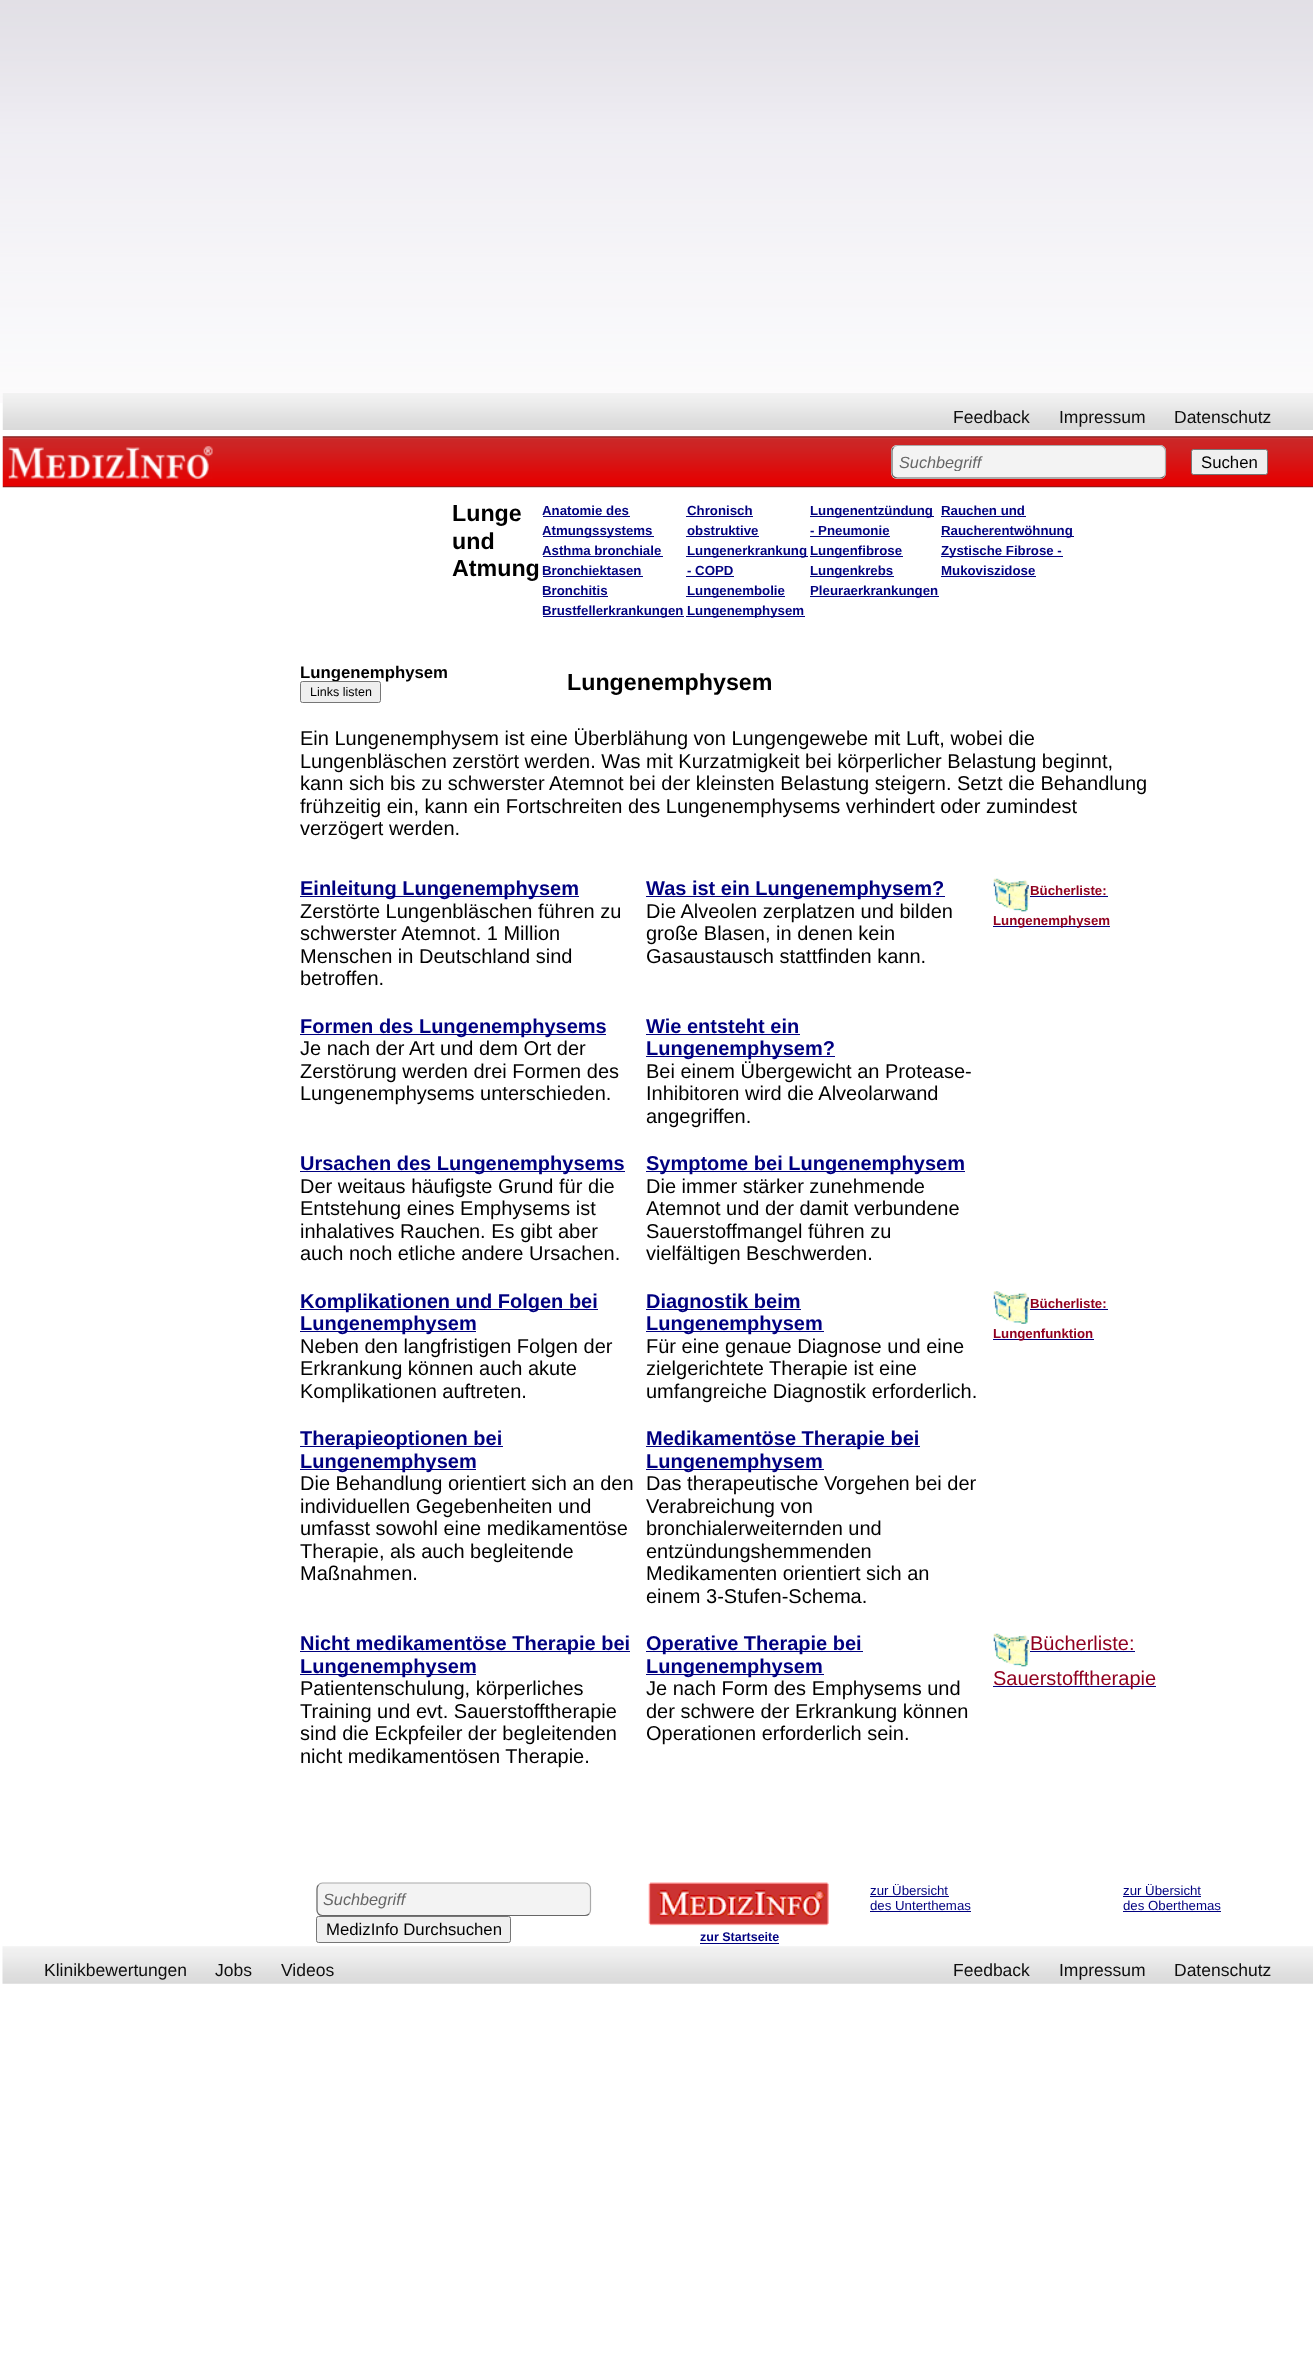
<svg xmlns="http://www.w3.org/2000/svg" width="1313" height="2362">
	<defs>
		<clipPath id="clip1"><rect x="899" y="453" width="260" height="18" /></clipPath>
	</defs>
	<rect width="100%" height="100%" fill="#FFFFFF" />
	<image x="0" y="0" width="1313" height="403" href="assets/img1.png" />
	<image x="2" y="393" width="1311" height="37" href="assets/img2.png" />
	<g font-family="Liberation Sans" font-size="17.5" fill="#0E0E0E">
		<text x="953" y="423">Feedback</text>
		<text x="1059" y="423">Impressum</text>
		<text x="1174" y="423">Datenschutz</text>
	</g>
	<image x="2" y="436" width="1311" height="52" href="assets/img3.png" />
	<image x="8" y="446" width="205" height="33" href="assets/img4.png" />
	<rect x="891" y="445" width="275" height="34" rx="6" fill="#F3F3F3" />
	<path d="M893.5 447.5C894.5 446 896 445.5 897.5 445.5H1160C1161.5 445.5 1163 446 1164 447.5C1165 448.5 1165.5 450 1165.5 451V472.5C1165.5 474 1165 475.5 1164 476.5" fill="none" stroke="#AAAAAA" stroke-width="1.2" />
	<path d="M1164 476.5C1163 477.5 1161.5 478 1160 478H897.5C896 478 894.5 477.5 893.5 476.5C892.5 475.5 892 474 892 472.5V451C892 450 892.5 448.5 893.5 447.5" fill="none" stroke="#666666" stroke-width="1.2" />
	<g clip-path="url(#clip1)">
		<text x="899" y="468" font-family="Liberation Sans" font-size="16.25" font-style="italic" fill="#666666">Suchbegriff</text>
	</g>
	<rect x="1191.5" y="449.5" width="76" height="25" rx="2" fill="#EFEFEF" stroke="#767676" />
	<text x="1201" y="468" font-family="Liberation Sans" font-size="16.75" fill="#000000">Suchen</text>
	<g font-family="Liberation Sans" font-size="23.25" font-weight="700" fill="#000000">
		<text x="452" y="521">Lunge</text>
		<text x="452" y="549">und</text>
		<text x="452" y="576">Atmung</text>
	</g>
	<text x="542" y="515" font-family="Liberation Sans" font-size="13.25" font-weight="700" fill="#000080">Anatomie des</text>
	<rect x="543" y="516" width="87" height="1" fill="#000080" />
	<rect x="543" y="536" width="111" height="1" fill="#000080" />
	<g font-family="Liberation Sans" font-size="13.25" font-weight="700" fill="#000080">
		<text x="542" y="535">Atmungssystems</text>
		<text x="542" y="555">Asthma bronchiale</text>
	</g>
	<rect x="543" y="556" width="120" height="1" fill="#000080" />
	<text x="542" y="575" font-family="Liberation Sans" font-size="13.25" font-weight="700" fill="#000080">Bronchiektasen</text>
	<rect x="543" y="576" width="100" height="1" fill="#000080" />
	<text x="542" y="595" font-family="Liberation Sans" font-size="13.25" font-weight="700" fill="#000080">Bronchitis</text>
	<rect x="543" y="596" width="65" height="1" fill="#000080" />
	<rect x="543" y="616" width="141" height="1" fill="#000080" />
	<g font-family="Liberation Sans" font-size="13.25" font-weight="700" fill="#000080">
		<text x="542" y="615">Brustfellerkrankungen</text>
		<text x="687" y="515">Chronisch</text>
	</g>
	<rect x="686" y="516" width="67" height="1" fill="#000080" />
	<text x="687" y="535" font-family="Liberation Sans" font-size="13.25" font-weight="700" fill="#000080">obstruktive</text>
	<rect x="686" y="536" width="73" height="1" fill="#000080" />
	<rect x="686" y="556" width="122" height="1" fill="#000080" />
	<g font-family="Liberation Sans" font-size="13.25" font-weight="700" fill="#000080">
		<text x="687" y="555">Lungenerkrankung</text>
		<text x="687" y="575">- COPD</text>
	</g>
	<rect x="686" y="576" width="48" height="1" fill="#000080" />
	<rect x="686" y="596" width="99" height="1" fill="#000080" />
	<text x="687" y="595" font-family="Liberation Sans" font-size="13.25" font-weight="700" fill="#000080">Lungenembolie</text>
	<rect x="686" y="616" width="119" height="1" fill="#000080" />
	<text x="687" y="615" font-family="Liberation Sans" font-size="13.25" font-weight="700" fill="#000080">Lungenemphysem</text>
	<rect x="810" y="516" width="124" height="1" fill="#000080" />
	<g font-family="Liberation Sans" font-size="13.25" font-weight="700" fill="#000080">
		<text x="810" y="515">Lungenentzündung</text>
		<text x="810" y="535">- Pneumonie</text>
	</g>
	<rect x="810" y="536" width="80" height="1" fill="#000080" />
	<rect x="810" y="556" width="93" height="1" fill="#000080" />
	<text x="810" y="555" font-family="Liberation Sans" font-size="13.25" font-weight="700" fill="#000080">Lungenfibrose</text>
	<rect x="810" y="576" width="84" height="1" fill="#000080" />
	<text x="810" y="575" font-family="Liberation Sans" font-size="13.25" font-weight="700" fill="#000080">Lungenkrebs</text>
	<rect x="810" y="596" width="129" height="1" fill="#000080" />
	<g font-family="Liberation Sans" font-size="13.25" font-weight="700" fill="#000080">
		<text x="810" y="595">Pleuraerkrankungen</text>
		<text x="941" y="515">Rauchen und</text>
	</g>
	<rect x="941" y="516" width="85" height="1" fill="#000080" />
	<rect x="941" y="536" width="133" height="1" fill="#000080" />
	<text x="941" y="535" font-family="Liberation Sans" font-size="13.25" font-weight="700" fill="#000080">Raucherentwöhnung</text>
	<rect x="941" y="556" width="122" height="1" fill="#000080" />
	<g font-family="Liberation Sans" font-size="13.25" font-weight="700" fill="#000080">
		<text x="941" y="555">Zystische Fibrose -</text>
		<text x="941" y="575">Mukoviszidose</text>
	</g>
	<rect x="941" y="576" width="95" height="1" fill="#000080" />
	<text x="300" y="678" font-family="Liberation Sans" font-size="16.75" font-weight="700" fill="#000000">Lungenemphysem</text>
	<rect x="300.5" y="681.5" width="80" height="21" rx="2" fill="#EFEFEF" stroke="#767676" />
	<text x="310" y="696" font-family="Liberation Sans" font-size="12.5" fill="#000000">Links listen</text>
	<text x="567" y="690" font-family="Liberation Sans" font-size="23.25" font-weight="700" fill="#000000">Lungenemphysem</text>
	<g font-family="Liberation Sans" font-size="20" fill="#000000">
		<text x="300" y="745">Ein Lungenemphysem ist eine Überblähung von Lungengewebe mit Luft, wobei die</text>
		<text x="300" y="768">Lungenbläschen zerstört werden. Was mit Kurzatmigkeit bei körperlicher Belastung beginnt,</text>
		<text x="300" y="790">kann sich bis zu schwerster Atemnot bei der kleinsten Belastung steigern. Setzt die Behandlung</text>
		<text x="300" y="813">frühzeitig ein, kann ein Fortschreiten des Lungenemphysems verhindert oder zumindest</text>
		<text x="300" y="835">verzögert werden.</text>
	</g>
	<rect x="300" y="896" width="279" height="1" fill="#000080" />
	<text x="300" y="895" font-family="Liberation Sans" font-size="20" font-weight="700" fill="#000080">Einleitung Lungenemphysem</text>
	<g font-family="Liberation Sans" font-size="20" fill="#000000">
		<text x="300" y="918">Zerstörte Lungenbläschen führen zu</text>
		<text x="300" y="940">schwerster Atemnot. 1 Million</text>
		<text x="300" y="963">Menschen in Deutschland sind</text>
		<text x="300" y="985">betroffen.</text>
	</g>
	<rect x="646" y="896" width="299" height="1" fill="#000080" />
	<text x="646" y="895" font-family="Liberation Sans" font-size="20" font-weight="700" fill="#000080">Was ist ein Lungenemphysem?</text>
	<g font-family="Liberation Sans" font-size="20" fill="#000000">
		<text x="646" y="918">Die Alveolen zerplatzen und bilden</text>
		<text x="646" y="940">große Blasen, in denen kein</text>
		<text x="646" y="963">Gasaustausch stattfinden kann.</text>
	</g>
	<image x="993" y="878" width="37" height="34" href="assets/img5.png" />
	<text x="1030" y="895" font-family="Liberation Sans" font-size="13.25" font-weight="700" fill="#900020">Bücherliste:</text>
	<rect x="1030" y="896" width="78" height="1" fill="#000080" />
	<rect x="993" y="926" width="117" height="1" fill="#000080" />
	<text x="993" y="925" font-family="Liberation Sans" font-size="13.25" font-weight="700" fill="#900020">Lungenemphysem</text>
	<rect x="300" y="1034" width="306" height="1" fill="#000080" />
	<text x="300" y="1033" font-family="Liberation Sans" font-size="20" font-weight="700" fill="#000080">Formen des Lungenemphysems</text>
	<g font-family="Liberation Sans" font-size="20" fill="#000000">
		<text x="300" y="1055">Je nach der Art und dem Ort der</text>
		<text x="300" y="1078">Zerstörung werden drei Formen des</text>
		<text x="300" y="1100">Lungenemphysems unterschieden.</text>
	</g>
	<text x="646" y="1033" font-family="Liberation Sans" font-size="20" font-weight="700" fill="#000080">Wie entsteht ein</text>
	<rect x="646" y="1034" width="154" height="1" fill="#000080" />
	<rect x="646" y="1056" width="189" height="1" fill="#000080" />
	<text x="646" y="1055" font-family="Liberation Sans" font-size="20" font-weight="700" fill="#000080">Lungenemphysem?</text>
	<g font-family="Liberation Sans" font-size="20" fill="#000000">
		<text x="646" y="1078">Bei einem Übergewicht an Protease-</text>
		<text x="646" y="1100">Inhibitoren wird die Alveolarwand</text>
		<text x="646" y="1123">angegriffen.</text>
	</g>
	<rect x="300" y="1171" width="325" height="1" fill="#000080" />
	<text x="300" y="1170" font-family="Liberation Sans" font-size="20" font-weight="700" fill="#000080">Ursachen des Lungenemphysems</text>
	<g font-family="Liberation Sans" font-size="20" fill="#000000">
		<text x="300" y="1193">Der weitaus häufigste Grund für die</text>
		<text x="300" y="1215">Entstehung eines Emphysems ist</text>
		<text x="300" y="1238">inhalatives Rauchen. Es gibt aber</text>
		<text x="300" y="1260">auch noch etliche andere Ursachen.</text>
	</g>
	<rect x="646" y="1171" width="319" height="1" fill="#000080" />
	<text x="646" y="1170" font-family="Liberation Sans" font-size="20" font-weight="700" fill="#000080">Symptome bei Lungenemphysem</text>
	<g font-family="Liberation Sans" font-size="20" fill="#000000">
		<text x="646" y="1193">Die immer stärker zunehmende</text>
		<text x="646" y="1215">Atemnot und der damit verbundene</text>
		<text x="646" y="1238">Sauerstoffmangel führen zu</text>
		<text x="646" y="1260">vielfältigen Beschwerden.</text>
	</g>
	<rect x="300" y="1309" width="298" height="1" fill="#000080" />
	<text x="300" y="1308" font-family="Liberation Sans" font-size="20" font-weight="700" fill="#000080">Komplikationen und Folgen bei</text>
	<rect x="300" y="1331" width="176" height="1" fill="#000080" />
	<text x="300" y="1330" font-family="Liberation Sans" font-size="20" font-weight="700" fill="#000080">Lungenemphysem</text>
	<g font-family="Liberation Sans" font-size="20" fill="#000000">
		<text x="300" y="1353">Neben den langfristigen Folgen der</text>
		<text x="300" y="1375">Erkrankung können auch akute</text>
		<text x="300" y="1398">Komplikationen auftreten.</text>
	</g>
	<rect x="646" y="1309" width="155" height="1" fill="#000080" />
	<text x="646" y="1308" font-family="Liberation Sans" font-size="20" font-weight="700" fill="#000080">Diagnostik beim</text>
	<rect x="646" y="1331" width="178" height="1" fill="#000080" />
	<text x="646" y="1330" font-family="Liberation Sans" font-size="20" font-weight="700" fill="#000080">Lungenemphysem</text>
	<g font-family="Liberation Sans" font-size="20" fill="#000000">
		<text x="646" y="1353">Für eine genaue Diagnose und eine</text>
		<text x="646" y="1375">zielgerichtete Therapie ist eine</text>
		<text x="646" y="1398">umfangreiche Diagnostik erforderlich.</text>
	</g>
	<image x="993" y="1291" width="37" height="33" href="assets/img6.png" />
	<text x="1030" y="1308" font-family="Liberation Sans" font-size="13.25" font-weight="700" fill="#900020">Bücherliste:</text>
	<rect x="1030" y="1309" width="78" height="1" fill="#000080" />
	<rect x="993" y="1339" width="101" height="1" fill="#000080" />
	<text x="993" y="1338" font-family="Liberation Sans" font-size="13.25" font-weight="700" fill="#900020">Lungenfunktion</text>
	<rect x="300" y="1446" width="203" height="1" fill="#000080" />
	<text x="300" y="1445" font-family="Liberation Sans" font-size="20" font-weight="700" fill="#000080">Therapieoptionen bei</text>
	<rect x="300" y="1469" width="176" height="1" fill="#000080" />
	<text x="300" y="1468" font-family="Liberation Sans" font-size="20" font-weight="700" fill="#000080">Lungenemphysem</text>
	<g font-family="Liberation Sans" font-size="20" fill="#000000">
		<text x="300" y="1490">Die Behandlung orientiert sich an den</text>
		<text x="300" y="1513">individuellen Gegebenheiten und</text>
		<text x="300" y="1535">umfasst sowohl eine medikamentöse</text>
		<text x="300" y="1558">Therapie, als auch begleitende</text>
		<text x="300" y="1580">Maßnahmen.</text>
	</g>
	<rect x="646" y="1446" width="274" height="1" fill="#000080" />
	<text x="646" y="1445" font-family="Liberation Sans" font-size="20" font-weight="700" fill="#000080">Medikamentöse Therapie bei</text>
	<rect x="646" y="1469" width="178" height="1" fill="#000080" />
	<text x="646" y="1468" font-family="Liberation Sans" font-size="20" font-weight="700" fill="#000080">Lungenemphysem</text>
	<g font-family="Liberation Sans" font-size="20" fill="#000000">
		<text x="646" y="1490">Das therapeutische Vorgehen bei der</text>
		<text x="646" y="1513">Verabreichung von</text>
		<text x="646" y="1535">bronchialerweiternden und</text>
		<text x="646" y="1558">entzündungshemmenden</text>
		<text x="646" y="1580">Medikamenten orientiert sich an</text>
		<text x="646" y="1603">einem 3-Stufen-Schema.</text>
	</g>
	<rect x="300" y="1651" width="330" height="1" fill="#000080" />
	<text x="300" y="1650" font-family="Liberation Sans" font-size="20" font-weight="700" fill="#000080">Nicht medikamentöse Therapie bei</text>
	<rect x="300" y="1674" width="176" height="1" fill="#000080" />
	<text x="300" y="1673" font-family="Liberation Sans" font-size="20" font-weight="700" fill="#000080">Lungenemphysem</text>
	<g font-family="Liberation Sans" font-size="20" fill="#000000">
		<text x="300" y="1695">Patientenschulung, körperliches</text>
		<text x="300" y="1718">Training und evt. Sauerstofftherapie</text>
		<text x="300" y="1740">sind die Eckpfeiler der begleitenden</text>
		<text x="300" y="1763">nicht medikamentösen Therapie.</text>
	</g>
	<rect x="646" y="1651" width="217" height="1" fill="#000080" />
	<text x="646" y="1650" font-family="Liberation Sans" font-size="20" font-weight="700" fill="#000080">Operative Therapie bei</text>
	<rect x="646" y="1674" width="178" height="1" fill="#000080" />
	<text x="646" y="1673" font-family="Liberation Sans" font-size="20" font-weight="700" fill="#000080">Lungenemphysem</text>
	<g font-family="Liberation Sans" font-size="20" fill="#000000">
		<text x="646" y="1695">Je nach Form des Emphysems und</text>
		<text x="646" y="1718">der schwere der Erkrankung können</text>
		<text x="646" y="1740">Operationen erforderlich sein.</text>
	</g>
	<image x="993" y="1633" width="37" height="34" href="assets/img5.png" />
	<text x="1030" y="1650" font-family="Liberation Sans" font-size="20" fill="#900020">Bücherliste:</text>
	<rect x="1030" y="1651" width="105" height="1" fill="#000080" />
	<rect x="993" y="1686" width="163" height="1" fill="#000080" />
	<text x="993" y="1685" font-family="Liberation Sans" font-size="20" fill="#900020">Sauerstofftherapie</text>
	<rect x="316" y="1883" width="275" height="33" rx="6" fill="#F3F3F3" />
	<path d="M318.5 1885C319.5 1883.5 321 1883 322.5 1883H585C586.5 1883 588 1883.5 589 1885C590 1886 590.5 1887.5 590.5 1889V1910C590.5 1911.5 590 1913 589 1914" fill="none" stroke="#AAAAAA" stroke-width="1.2" />
	<path d="M589 1914C588 1915 586.5 1915.5 585 1915.5H322.5C321 1915.5 319.5 1915 318.5 1914C317.5 1913 317 1911.5 317 1910V1889C317 1887.5 317.5 1886 318.5 1885" fill="none" stroke="#666666" stroke-width="1.2" />
	<text x="323" y="1905" font-family="Liberation Sans" font-size="16.25" font-style="italic" fill="#666666">Suchbegriff</text>
	<rect x="316.5" y="1916.5" width="194" height="26" rx="2" fill="#EFEFEF" stroke="#767676" />
	<text x="326" y="1935" font-family="Liberation Sans" font-size="16.75" fill="#000000">MedizInfo Durchsuchen</text>
	<image x="648" y="1882" width="181" height="44" href="assets/img7.png" />
	<text x="700" y="1941" font-family="Liberation Sans" font-size="12.5" font-weight="700" fill="#000080">zur Startseite</text>
	<rect x="700" y="1943" width="79" height="1" fill="#000080" />
	<text x="870" y="1895" font-family="Liberation Sans" font-size="13.25" fill="#000080">zur Übersicht</text>
	<rect x="870" y="1896" width="79" height="1" fill="#000080" />
	<text x="870" y="1910" font-family="Liberation Sans" font-size="13.25" fill="#000080">des Unterthemas</text>
	<rect x="870" y="1911" width="101" height="1" fill="#000080" />
	<text x="1123" y="1895" font-family="Liberation Sans" font-size="13.25" fill="#000080">zur Übersicht</text>
	<rect x="1123" y="1896" width="78" height="1" fill="#000080" />
	<text x="1123" y="1910" font-family="Liberation Sans" font-size="13.25" fill="#000080">des Oberthemas</text>
	<rect x="1123" y="1911" width="98" height="1" fill="#000080" />
	<image x="2" y="1946" width="1311" height="38" href="assets/img8.png" />
	<g font-family="Liberation Sans" font-size="17.5" fill="#0E0E0E">
		<text x="44" y="1976">Klinikbewertungen</text>
		<text x="215" y="1976">Jobs</text>
		<text x="281" y="1976">Videos</text>
		<text x="953" y="1976">Feedback</text>
		<text x="1059" y="1976">Impressum</text>
		<text x="1174" y="1976">Datenschutz</text>
	</g>
</svg>
